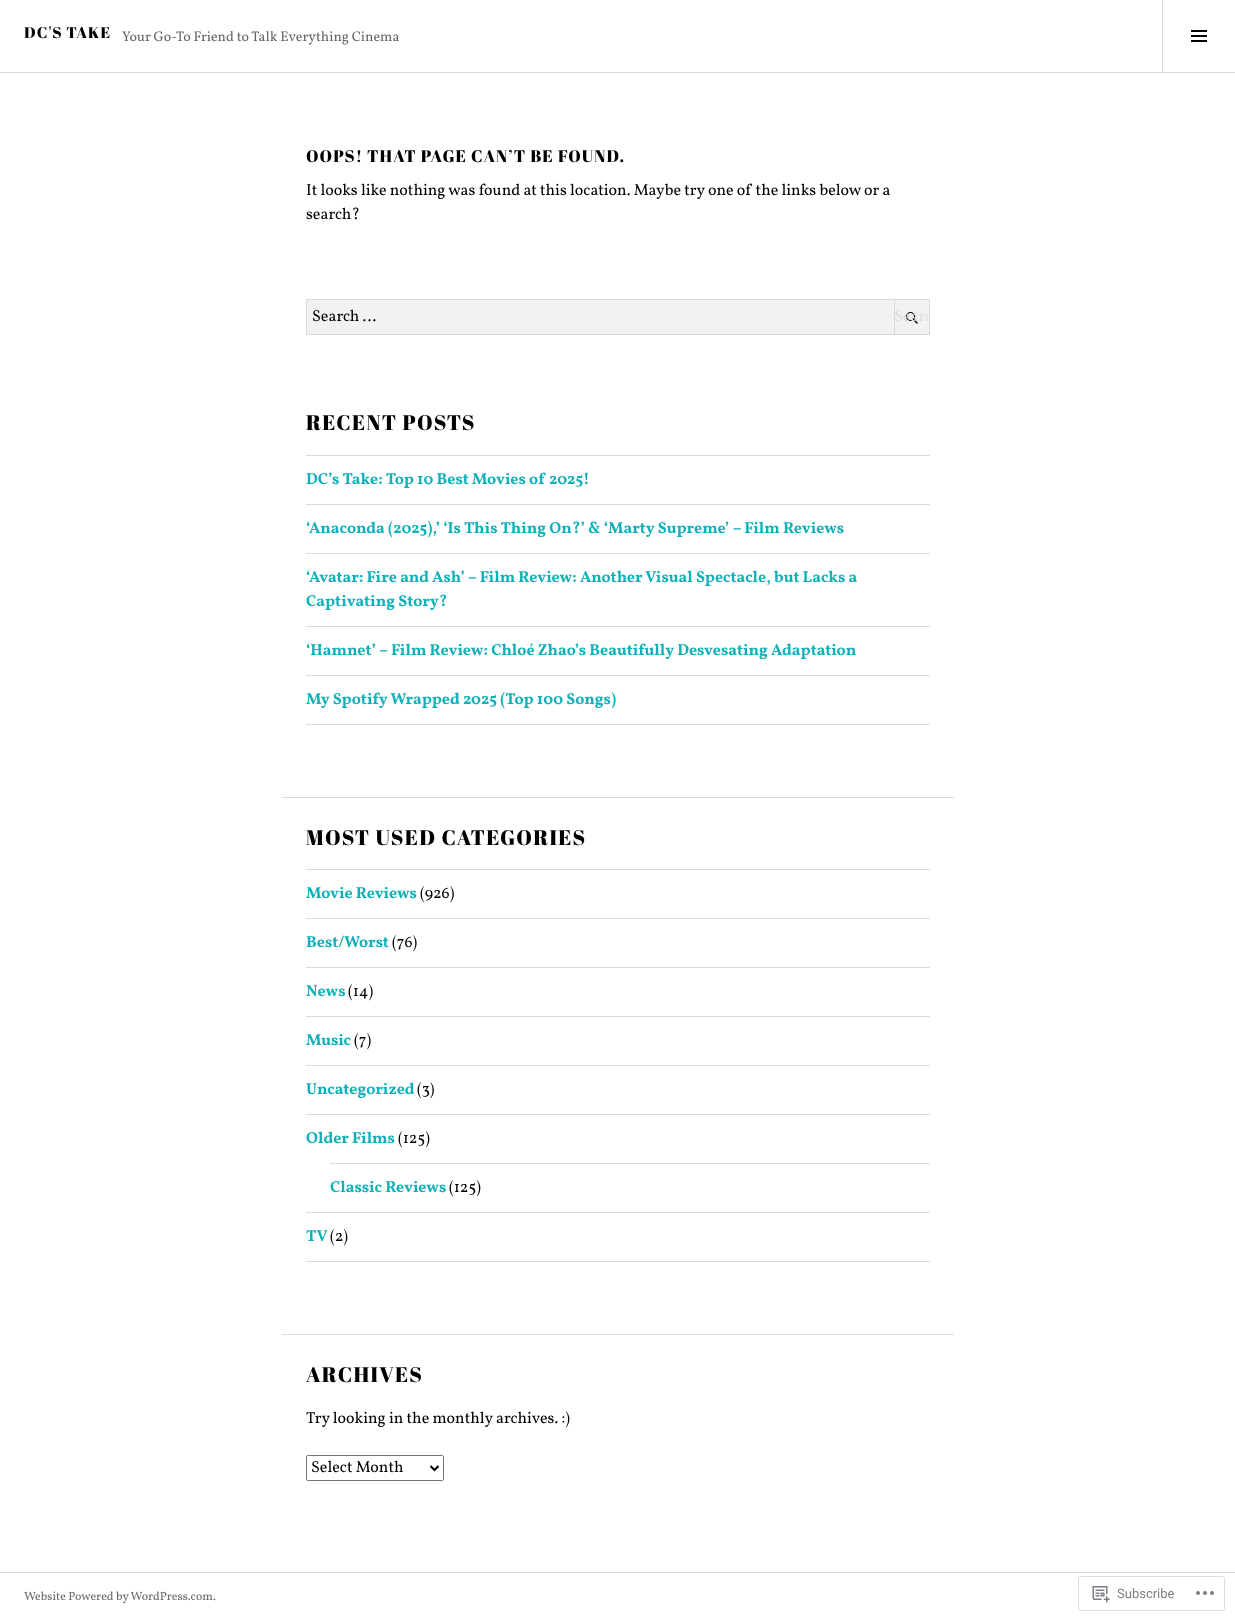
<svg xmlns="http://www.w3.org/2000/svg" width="1235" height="1621">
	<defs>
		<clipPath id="clip1"><rect x="894" y="299" width="36" height="36" /></clipPath>
	</defs>
	<rect width="100%" height="100%" fill="#FFFFFF" />
	<rect x="0" y="72" width="1235" height="1" fill="#D9D9D9" />
	<text x="24" y="38" font-family="Abril Fatface" font-size="15.5" letter-spacing="1" fill="#000000">DC'S TAKE</text>
	<text x="122" y="41" font-family="Vollkorn" font-size="14" fill="#666666">Your Go-To Friend to Talk Everything Cinema</text>
	<rect x="1162" y="0" width="1" height="72" fill="#D9D9D9" />
	<image x="1191" y="30" width="16" height="12" href="assets/img1.png" />
	<text x="306" y="162" font-family="Abril Fatface" font-size="16.75" letter-spacing="1.05" fill="#000000">OOPS! THAT PAGE CAN’T BE FOUND.</text>
	<g font-family="Vollkorn" font-size="16" fill="#000000">
		<text x="306" y="195">It looks like nothing was found at this location. Maybe try one of the links below or a</text>
		<text x="306" y="219">search?</text>
	</g>
	<rect x="307" y="300" width="587" height="34" fill="#F2F2F2" />
	<rect x="306.5" y="299.5" width="623" height="35" fill="none" stroke="#D9D9D9" />
	<text x="312" y="321" font-family="Vollkorn" font-size="16" fill="#000000">Search …</text>
	<rect x="894.5" y="299.5" width="35" height="35" fill="#F2F2F2" stroke="#D9D9D9" />
	<image x="906" y="312" width="12" height="12" href="assets/img2.png" />
	<g clip-path="url(#clip1)">
		<text x="894" y="321" font-family="Vollkorn" font-size="16" fill="#DCDCDC">Searc</text>
	</g>
	<text x="306" y="430" font-family="Abril Fatface" font-size="21" letter-spacing="1.3" fill="#000000">RECENT POSTS</text>
	<rect x="306" y="724" width="624" height="1" fill="#D9D9D9" />
	<rect x="306" y="455" width="624" height="1" fill="#D9D9D9" />
	<text x="306" y="484" font-family="Vollkorn" font-size="16" font-weight="700" fill="#10B0B8">DC’s Take: Top 10 Best Movies of 2025!</text>
	<rect x="306" y="504" width="624" height="1" fill="#D9D9D9" />
	<text x="306" y="533" font-family="Vollkorn" font-size="16" font-weight="700" fill="#10B0B8">‘Anaconda (2025),’ ‘Is This Thing On?’ &amp; ‘Marty Supreme’ – Film Reviews</text>
	<rect x="306" y="553" width="624" height="1" fill="#D9D9D9" />
	<g font-family="Vollkorn" font-size="16" font-weight="700" fill="#10B0B8">
		<text x="306" y="582">‘Avatar: Fire and Ash’ – Film Review: Another Visual Spectacle, but Lacks a</text>
		<text x="306" y="606">Captivating Story?</text>
	</g>
	<rect x="306" y="626" width="624" height="1" fill="#D9D9D9" />
	<text x="306" y="655" font-family="Vollkorn" font-size="16" font-weight="700" fill="#10B0B8">‘Hamnet’ – Film Review: Chloé Zhao’s Beautifully Desvesating Adaptation</text>
	<rect x="306" y="675" width="624" height="1" fill="#D9D9D9" />
	<text x="306" y="704" font-family="Vollkorn" font-size="16" font-weight="700" fill="#10B0B8">My Spotify Wrapped 2025 (Top 100 Songs)</text>
	<rect x="282" y="797" width="672" height="1" fill="#D9D9D9" />
	<text x="306" y="845" font-family="Abril Fatface" font-size="21" letter-spacing="1.3" fill="#000000">MOST USED CATEGORIES</text>
	<rect x="306" y="1261" width="624" height="1" fill="#D9D9D9" />
	<rect x="306" y="869" width="624" height="1" fill="#D9D9D9" />
	<text x="306" y="898" font-family="Vollkorn" font-size="16" font-weight="700" fill="#10B0B8">Movie Reviews</text>
	<text x="420" y="898" font-family="Vollkorn" font-size="16" fill="#000000">(926)</text>
	<rect x="306" y="918" width="624" height="1" fill="#D9D9D9" />
	<text x="306" y="947" font-family="Vollkorn" font-size="16" font-weight="700" fill="#10B0B8">Best/Worst</text>
	<text x="392" y="947" font-family="Vollkorn" font-size="16" fill="#000000">(76)</text>
	<rect x="306" y="967" width="624" height="1" fill="#D9D9D9" />
	<text x="306" y="996" font-family="Vollkorn" font-size="16" font-weight="700" fill="#10B0B8">News</text>
	<text x="348" y="996" font-family="Vollkorn" font-size="16" fill="#000000">(14)</text>
	<rect x="306" y="1016" width="624" height="1" fill="#D9D9D9" />
	<text x="306" y="1045" font-family="Vollkorn" font-size="16" font-weight="700" fill="#10B0B8">Music</text>
	<text x="354" y="1045" font-family="Vollkorn" font-size="16" fill="#000000">(7)</text>
	<rect x="306" y="1065" width="624" height="1" fill="#D9D9D9" />
	<text x="306" y="1094" font-family="Vollkorn" font-size="16" font-weight="700" fill="#10B0B8">Uncategorized</text>
	<text x="417" y="1094" font-family="Vollkorn" font-size="16" fill="#000000">(3)</text>
	<rect x="306" y="1114" width="624" height="1" fill="#D9D9D9" />
	<text x="306" y="1143" font-family="Vollkorn" font-size="16" font-weight="700" fill="#10B0B8">Older Films</text>
	<text x="398" y="1143" font-family="Vollkorn" font-size="16" fill="#000000">(125)</text>
	<rect x="330" y="1163" width="600" height="1" fill="#D9D9D9" />
	<text x="330" y="1192" font-family="Vollkorn" font-size="16" font-weight="700" fill="#10B0B8">Classic Reviews</text>
	<text x="449" y="1192" font-family="Vollkorn" font-size="16" fill="#000000">(125)</text>
	<rect x="306" y="1212" width="624" height="1" fill="#D9D9D9" />
	<text x="306" y="1241" font-family="Vollkorn" font-size="16" font-weight="700" fill="#10B0B8">TV</text>
	<text x="330" y="1241" font-family="Vollkorn" font-size="16" fill="#000000">(2)</text>
	<rect x="282" y="1334" width="672" height="1" fill="#D9D9D9" />
	<text x="306" y="1382" font-family="Abril Fatface" font-size="21" letter-spacing="1.3" fill="#000000">ARCHIVES</text>
	<text x="306" y="1423" font-family="Vollkorn" font-size="16" fill="#000000">Try looking in the monthly archives. :)</text>
	<rect x="306.5" y="1455.5" width="137" height="25" rx="1.5" fill="none" stroke="#767676" />
	<path d="M430.5 1466L434.5 1470L438.5 1466" fill="none" stroke="#000000" stroke-width="2" />
	<text x="311" y="1472" font-family="Vollkorn" font-size="16" fill="#000000">Select Month</text>
	<rect x="0" y="1572" width="1235" height="1" fill="#D9D9D9" />
	<text x="24" y="1600" font-family="Vollkorn" font-size="12" fill="#666666">Website Powered by WordPress.com.</text>
	<rect x="1078.5" y="1576.5" width="146" height="34" rx="2.5" fill="none" stroke="#DDDDDF" />
	<image x="1092" y="1586" width="18" height="17" href="assets/img3.png" />
	<text x="1117" y="1598" font-family="Roboto" font-size="13" fill="#7B7F85">Subscribe</text>
	<image x="1196" y="1591" width="18" height="4" href="assets/img4.png" />
</svg>
